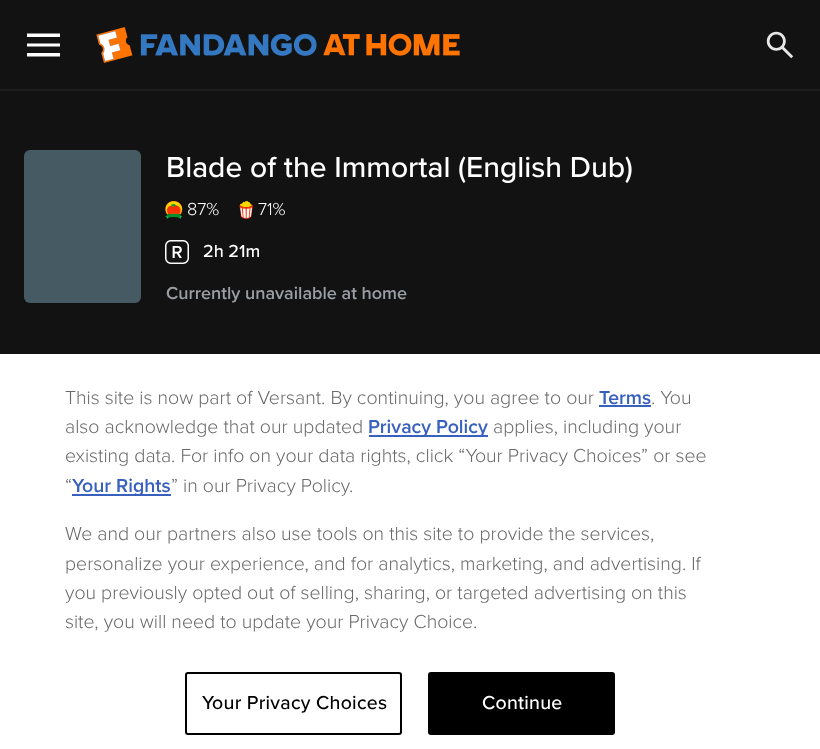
<svg xmlns="http://www.w3.org/2000/svg" width="820" height="749">
	<rect width="100%" height="100%" fill="#121212" />
	<rect x="0" y="89" width="820" height="2" fill="#1E1E1E" />
	<path d="M60 37H27V33.5H60ZM60 46.5H27V43.5H60ZM60 56.5H27V53H60Z" fill="#FFFFFF" fill-rule="evenodd" />
	<image x="96" y="27" width="364" height="36" href="assets/img1.png" />
	<image x="766" y="31" width="28" height="28" href="assets/img2.png" />
	<rect x="24" y="150" width="117" height="153" rx="6" fill="#465A63" />
	<text x="166" y="177" font-family="Proxima Nova" font-size="30" font-weight="500" fill="#FFFFFF">Blade of the Immortal (English Dub)</text>
	<image x="165" y="201" width="18" height="18" href="assets/img3.png" />
	<text x="187" y="215" font-family="Proxima Nova" font-size="18" font-weight="300" fill="#FFFFFF">87%</text>
	<image x="239" y="201" width="14" height="18" href="assets/img4.png" />
	<text x="258" y="215" font-family="Proxima Nova" font-size="18" font-weight="300" fill="#FFFFFF">71%</text>
	<image x="165" y="240" width="24" height="24" href="assets/img5.png" />
	<text x="203" y="257" font-family="Proxima Nova" font-size="18" font-weight="500" fill="#FFFFFF">2h 21m</text>
	<text x="166" y="299" font-family="Proxima Nova" font-size="18" font-weight="600" fill="#999EA3">Currently unavailable at home</text>
	<rect x="0" y="354" width="820" height="395" fill="#FFFFFF" />
	<text x="65" y="404" font-family="Proxima Nova" font-size="19.5" font-weight="300" fill="#696969">This site is now part of Versant. By continuing, you agree to our</text>
	<text x="599" y="404" font-family="Proxima Nova" font-size="19.5" font-weight="600" fill="#3860BE">Terms</text>
	<rect x="599" y="405" width="52" height="2" fill="#3860BE" />
	<g font-family="Proxima Nova" font-size="19.5" font-weight="300" fill="#696969">
		<text x="651" y="404">. You</text>
		<text x="65" y="433">also acknowledge that our updated</text>
	</g>
	<rect x="369" y="435" width="119" height="2" fill="#3860BE" />
	<text x="368" y="433" font-family="Proxima Nova" font-size="19.5" font-weight="600" fill="#3860BE">Privacy Policy</text>
	<g font-family="Proxima Nova" font-size="19.5" font-weight="300" fill="#696969">
		<text x="493" y="433">applies, including your</text>
		<text x="65" y="462">existing data. For info on your data rights, click “Your Privacy Choices” or see</text>
		<text x="65" y="492">“</text>
	</g>
	<rect x="72" y="494" width="99" height="2" fill="#3860BE" />
	<text x="72" y="492" font-family="Proxima Nova" font-size="19.5" font-weight="600" fill="#3860BE">Your Rights</text>
	<g font-family="Proxima Nova" font-size="19.5" font-weight="300" fill="#696969">
		<text x="171" y="492">” in our Privacy Policy.</text>
		<text x="65" y="540">We and our partners also use tools on this site to provide the services,</text>
		<text x="65" y="570">personalize your experience, and for analytics, marketing, and advertising. If</text>
		<text x="65" y="599">you previously opted out of selling, sharing, or targeted advertising on this</text>
		<text x="65" y="628">site, you will need to update your Privacy Choice.</text>
	</g>
	<rect x="186" y="673" width="215" height="61" rx="2" fill="none" stroke="#000000" stroke-width="2" />
	<text x="202" y="709" font-family="Proxima Nova" font-size="19.5" font-weight="500" letter-spacing="0.25" fill="#000000">Your Privacy Choices</text>
	<rect x="429" y="673" width="185" height="61" rx="2" fill="#000000" stroke="#000000" stroke-width="2" />
	<text x="482" y="709" font-family="Proxima Nova" font-size="19.5" font-weight="500" letter-spacing="0.25" fill="#FFFFFF">Continue</text>
</svg>
